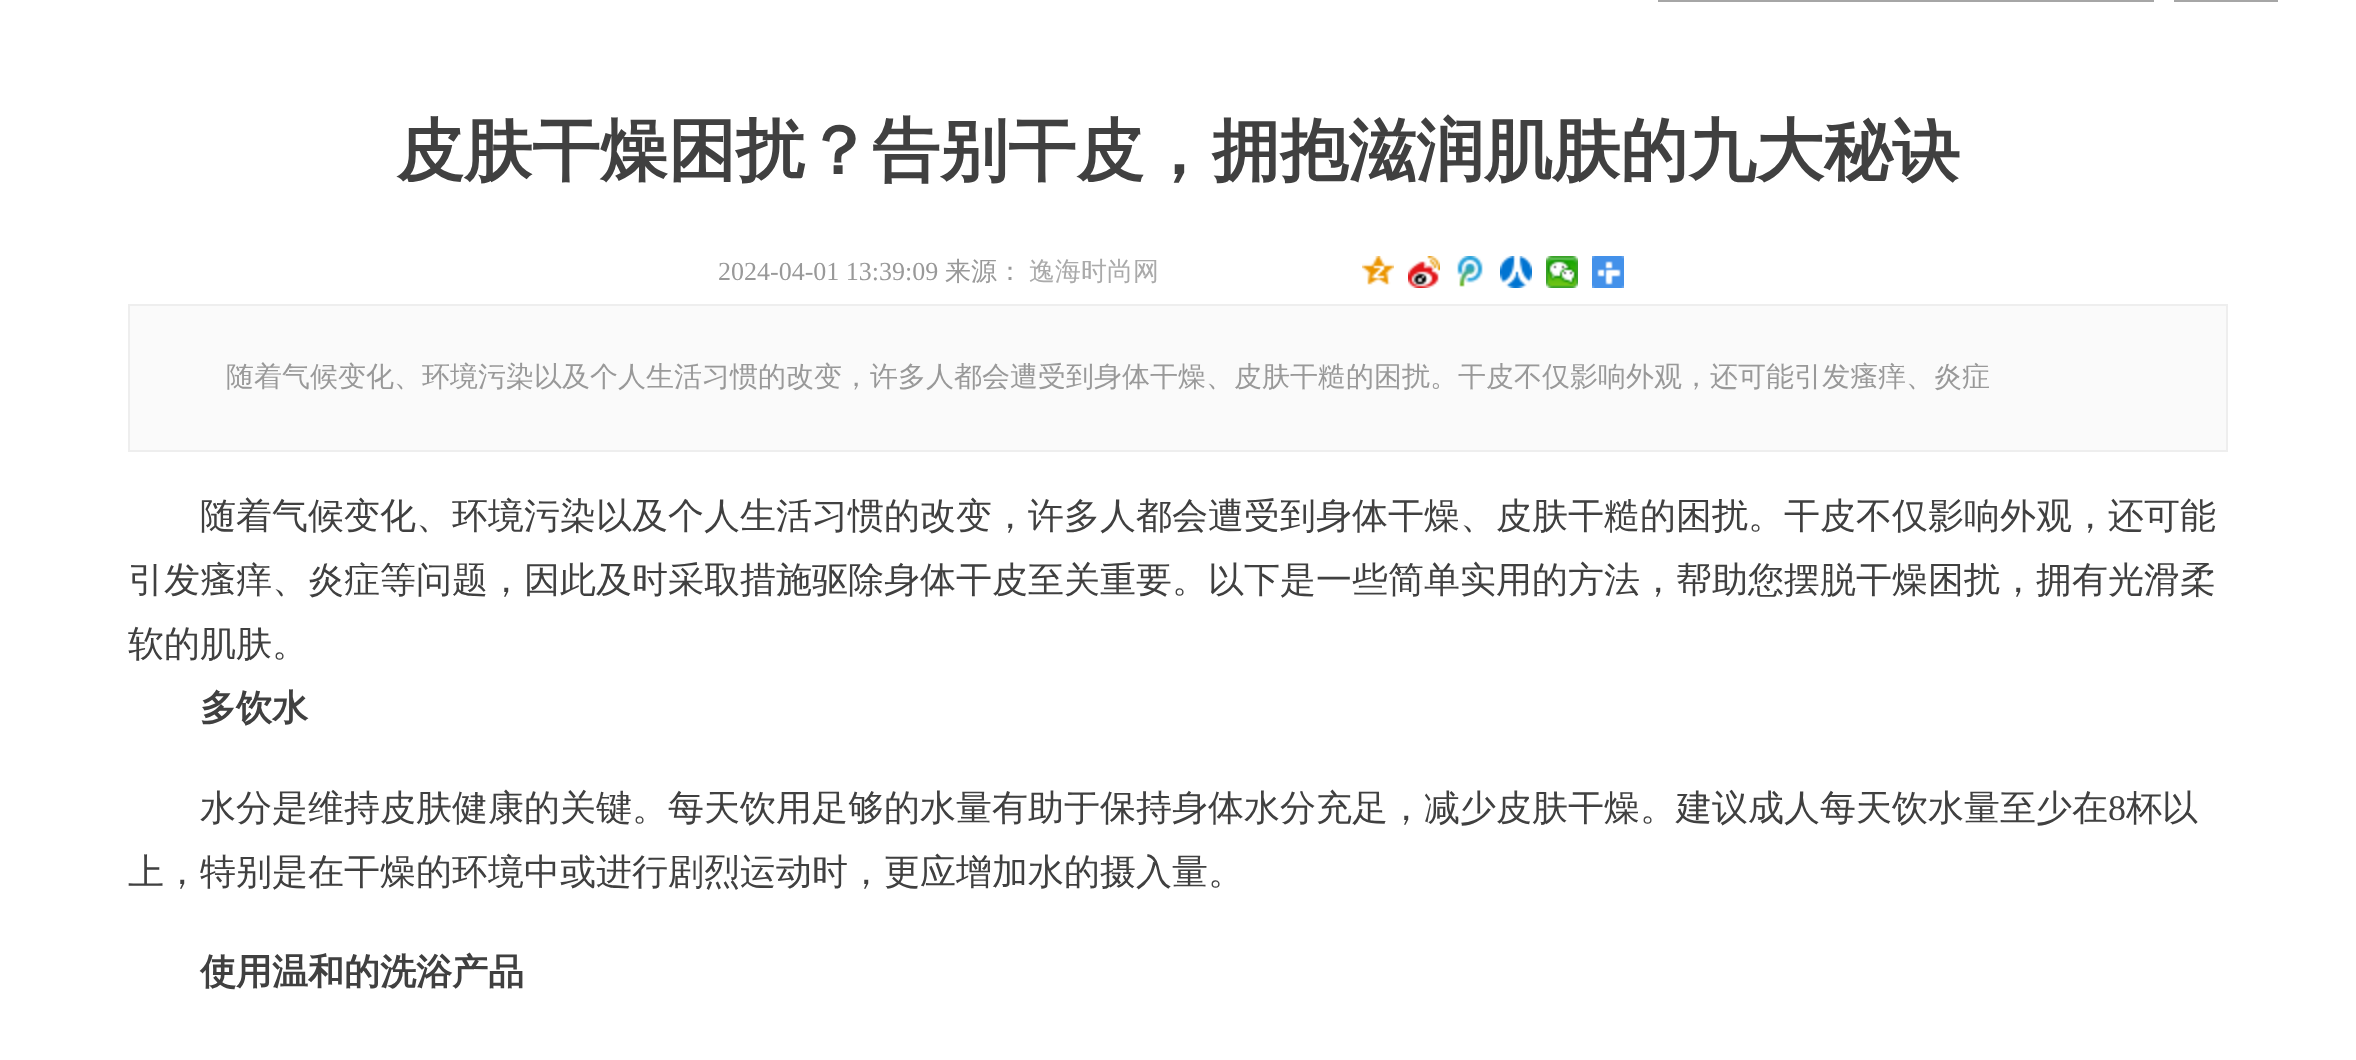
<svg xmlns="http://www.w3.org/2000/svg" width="2356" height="1060">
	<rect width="100%" height="100%" fill="#FFFFFF" />
	<rect x="1659" y="-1" width="494" height="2" fill="none" stroke="#A6A6A6" stroke-width="2" />
	<rect x="2175" y="-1" width="102" height="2" fill="none" stroke="#A6A6A6" stroke-width="2" />
	<text x="396" y="174" font-family="WenQuanYi Zen Hei" font-size="68" font-weight="700" fill="#404040">皮肤干燥困扰？告别干皮，拥抱滋润肌肤的九大秘诀</text>
	<text x="718" y="280" font-family="Liberation Serif" font-size="26" fill="#999999">2024-04-01 13:39:09</text>
	<text x="945" y="280" font-family="WenQuanYi Zen Hei" font-size="26" font-weight="500" fill="#999999">来源：</text>
	<text x="1029" y="280" font-family="WenQuanYi Zen Hei" font-size="26" font-weight="500" fill="#AAAAAA">逸海时尚网</text>
	<image x="1362" y="256" width="32" height="29" href="assets/img1.png" />
	<image x="1408" y="256" width="32" height="32" href="assets/img2.png" />
	<image x="1457" y="256" width="26" height="31" href="assets/img3.png" />
	<image x="1500" y="256" width="32" height="32" href="assets/img4.png" />
	<image x="1546" y="256" width="32" height="32" href="assets/img5.png" />
	<image x="1592" y="256" width="32" height="32" href="assets/img6.png" />
	<rect x="129" y="305" width="2098" height="146" fill="#FAFAFA" stroke="#EEEEEE" stroke-width="2" />
	<text x="226" y="386" font-family="WenQuanYi Zen Hei" font-size="28" font-weight="500" fill="#999999">随着气候变化、环境污染以及个人生活习惯的改变，许多人都会遭受到身体干燥、皮肤干糙的困扰。干皮不仅影响外观，还可能引发瘙痒、炎症</text>
	<g font-family="WenQuanYi Zen Hei" font-size="36" font-weight="500" fill="#404040">
		<text x="200" y="528">随着气候变化、环境污染以及个人生活习惯的改变，许多人都会遭受到身体干燥、皮肤干糙的困扰。干皮不仅影响外观，还可能</text>
		<text x="128" y="592">引发瘙痒、炎症等问题，因此及时采取措施驱除身体干皮至关重要。以下是一些简单实用的方法，帮助您摆脱干燥困扰，拥有光滑柔</text>
		<text x="128" y="656">软的肌肤。</text>
	</g>
	<text x="200" y="720" font-family="WenQuanYi Zen Hei" font-size="36" font-weight="700" fill="#404040">多饮水</text>
	<text x="200" y="820" font-family="WenQuanYi Zen Hei" font-size="36" font-weight="500" fill="#404040">水分是维持皮肤健康的关键。每天饮用足够的水量有助于保持身体水分充足，减少皮肤干燥。建议成人每天饮水量至少在</text>
	<text x="2108" y="820" font-family="Liberation Serif" font-size="36" fill="#404040">8</text>
	<g font-family="WenQuanYi Zen Hei" font-size="36" font-weight="500" fill="#404040">
		<text x="2126" y="820">杯以</text>
		<text x="128" y="884">上，特别是在干燥的环境中或进行剧烈运动时，更应增加水的摄入量。</text>
	</g>
	<text x="200" y="984" font-family="WenQuanYi Zen Hei" font-size="36" font-weight="700" fill="#404040">使用温和的洗浴产品</text>
</svg>
